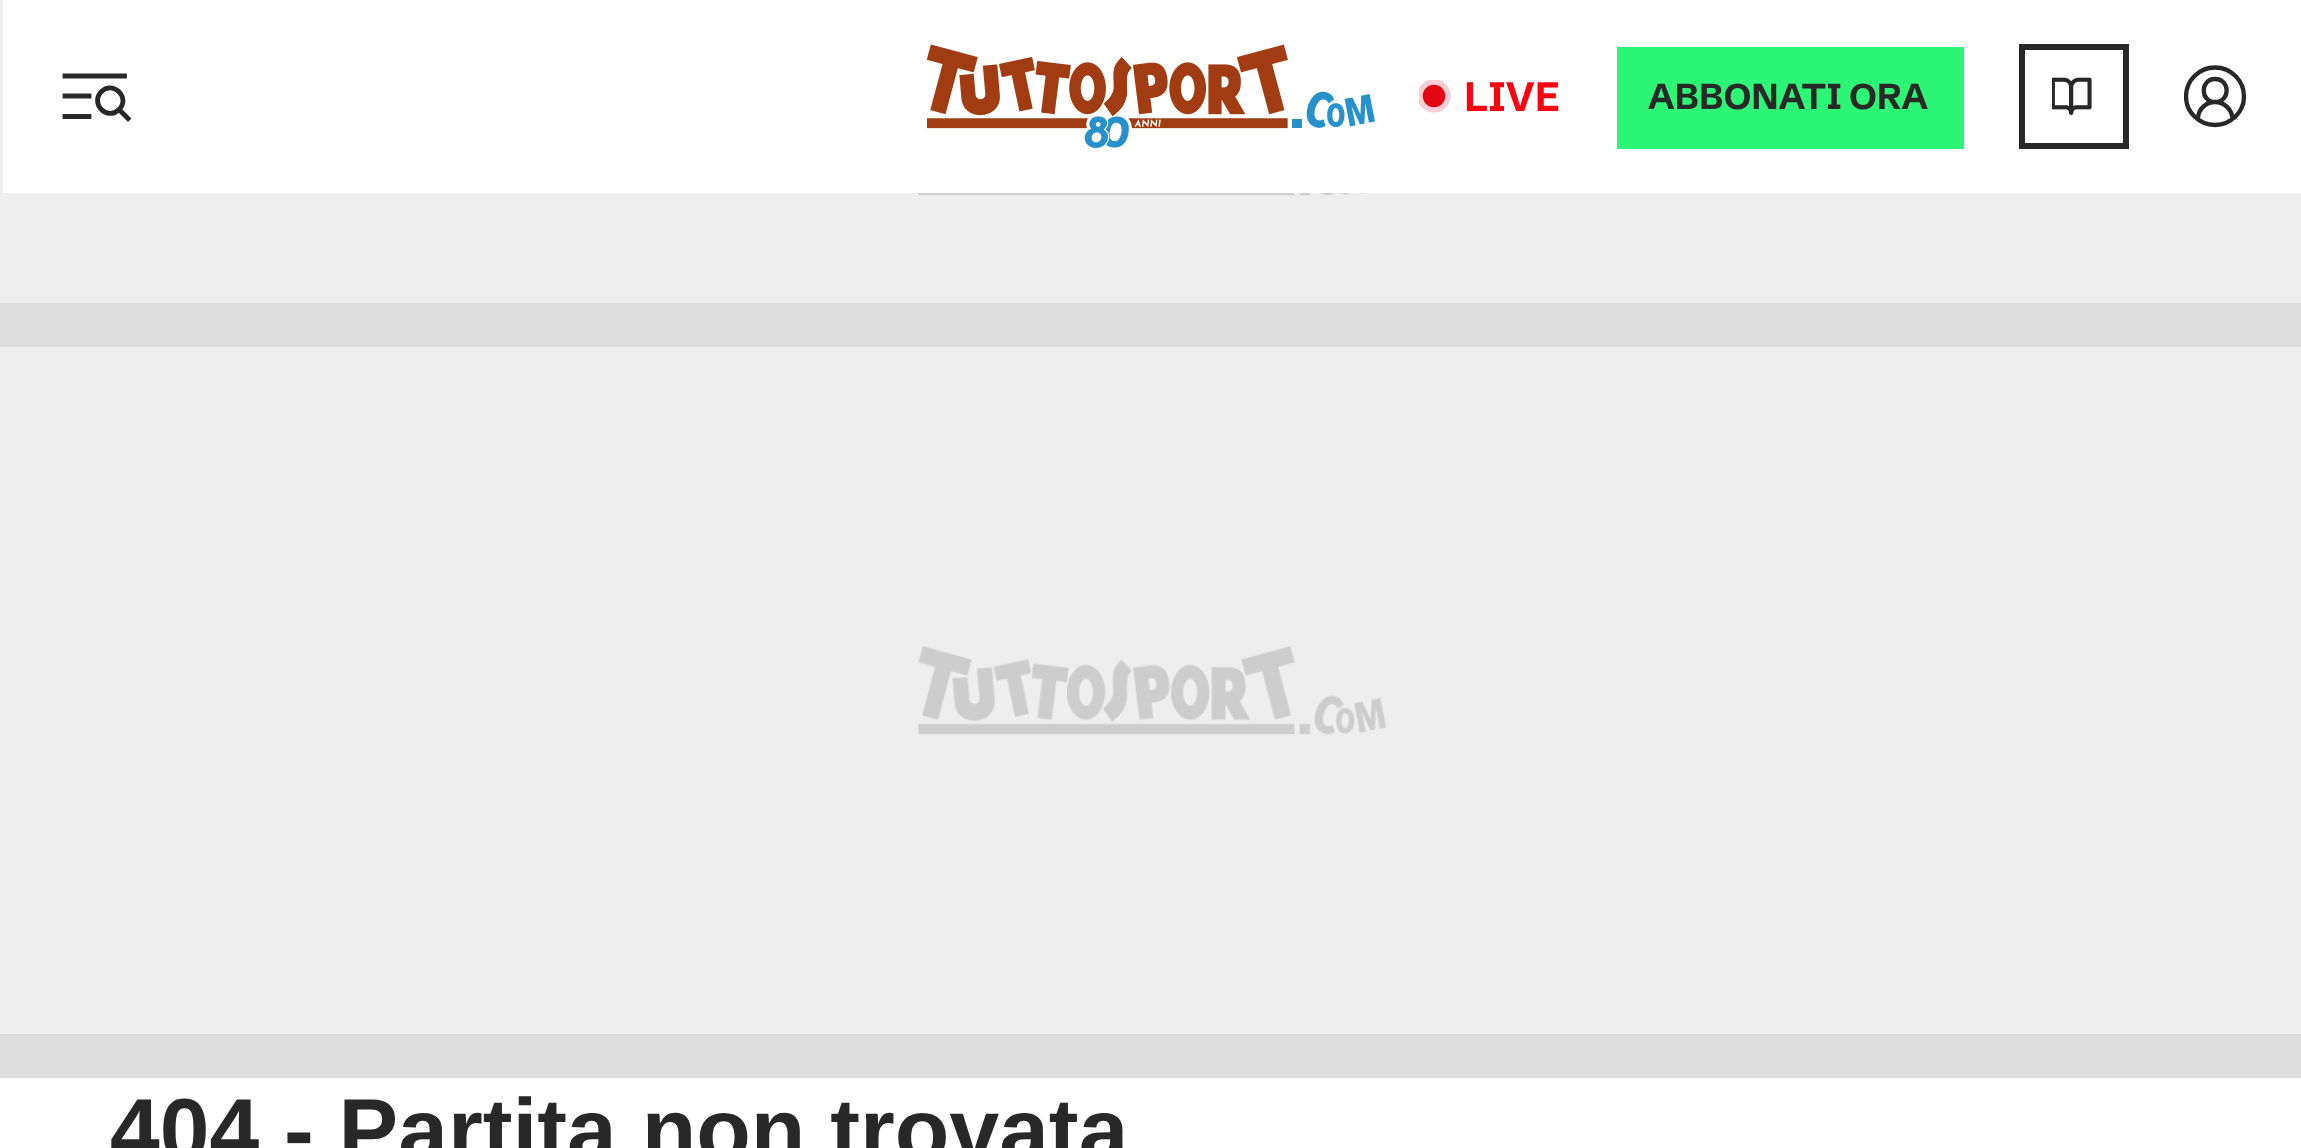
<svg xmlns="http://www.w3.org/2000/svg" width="2301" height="1148">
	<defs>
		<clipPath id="clip1"><rect x="1419" y="80" width="33" height="33" /></clipPath>
		<clipPath id="clip2"><rect x="2184" y="63" width="66" height="66" /></clipPath>
	</defs>
	<rect width="100%" height="100%" fill="#DDDDDD" />
	<rect x="0" y="0" width="2301" height="303" fill="#EEEEEE" />
	<image x="918" y="193" width="448" height="3" href="assets/img1.png" />
	<rect x="3" y="0" width="2298" height="193" fill="#FFFFFF" />
	<path d="M65 76H124.5M65 96H89M65 116.5H89" fill="none" stroke="#282828" stroke-width="4.8" stroke-linecap="square" />
	<path d="M128 118.5L119 109.5M119 109.5C131 98 113 80 101.5 91.5C89.5 103.5 107.5 121.5 119 109.5Z" fill="none" stroke="#282828" stroke-width="4.8" stroke-linecap="square" />
	<image x="927" y="44" width="448" height="104" href="assets/img2.png" />
	<circle cx="1434" cy="96" r="14" fill="#E30613" />
	<g clip-path="url(#clip1)">
		<circle cx="1434" cy="96" r="14" fill="none" stroke="#F9CDD6" stroke-width="5.5" />
	</g>
	<text x="1464" y="111" font-family="Schibsted Grotesk" font-size="41" font-weight="700" fill="#FF000F">LIVE</text>
	<rect x="1617" y="47" width="347" height="102" fill="#2DF575" />
	<text x="1648" y="109" font-family="Schibsted Grotesk" font-size="35.75" font-weight="700" fill="#282828">ABBONATI ORA</text>
	<rect x="2022" y="47" width="104" height="99" fill="none" stroke="#282828" stroke-width="6" />
	<image x="2052" y="77" width="40" height="38" href="assets/img3.png" />
	<g clip-path="url(#clip2)">
		<path d="M2215 102C2224 102 2231.5 109 2232.5 118M2215 102C2206 102 2198.5 109 2198 118M2215 102C2230.5 102 2230.5 79 2215 79C2200 79 2200 102 2215 102ZM2244 96.5C2244 112 2231 125 2215 125C2199 125 2186 112 2186 96.5C2186 80.5 2199 67.5 2215 67.5C2231 67.5 2244 80.5 2244 96.5Z" fill="none" stroke="#282828" stroke-width="4.3" stroke-linecap="square" />
	</g>
	<rect x="0" y="347" width="2301" height="687" fill="#EEEEEE" />
	<image x="918" y="646" width="468" height="89" href="assets/img4.png" />
	<rect x="0" y="1078" width="2301" height="70" fill="#FFFFFF" />
	<text x="110" y="1161" font-family="Liberation Sans" font-size="89.4" font-weight="700" fill="#282828">404 - Partita non trovata</text>
</svg>
